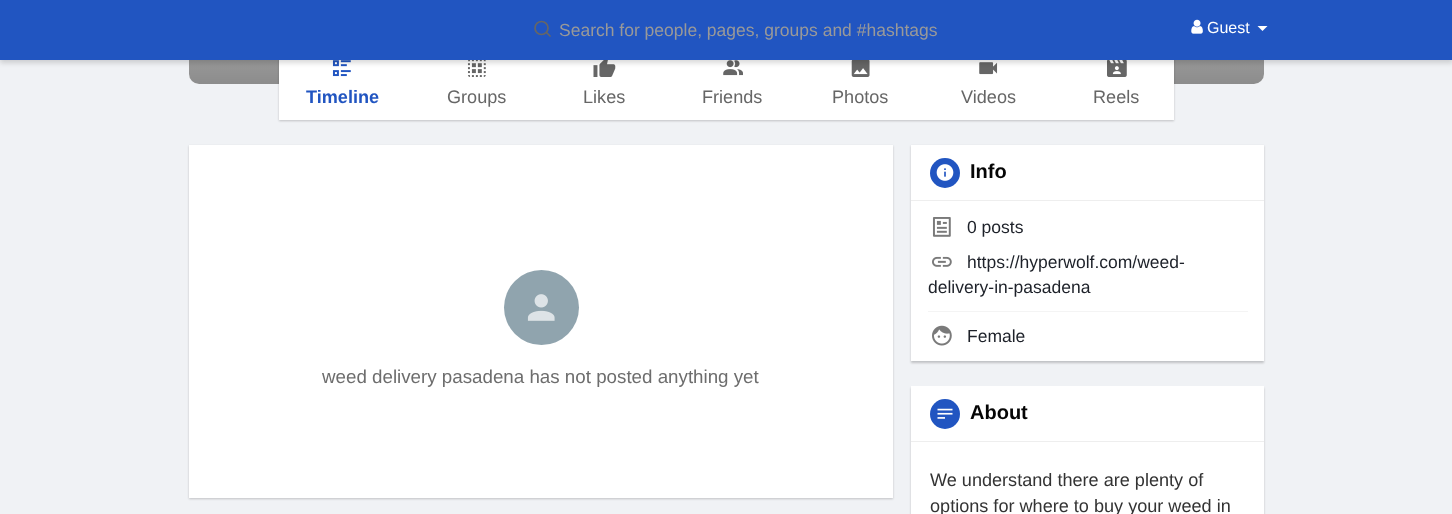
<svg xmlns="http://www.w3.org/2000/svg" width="1452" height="514">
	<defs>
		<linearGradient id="g1" gradientUnits="userSpaceOnUse" x1="726" y1="-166" x2="726" y2="84"><stop offset="0" stop-color="#000000" stop-opacity="0" /><stop offset="1" stop-color="#000000" stop-opacity="0.45" /></linearGradient>
	</defs>
	<rect width="100%" height="100%" fill="#F0F2F5" />
	<path d="M189 56H1264V74C1264 79.5 1259.5 84 1254 84H199C193.5 84 189 79.5 189 74Z" fill="#FFFFFF" />
	<rect x="189" y="-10" width="1075" height="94" rx="10" fill="url(#g1)" />
	<rect x="279" y="44" width="895" height="77" fill="#000000" fill-opacity="0.2" filter="blur(1px)" />
	<rect x="279" y="60" width="895" height="60" fill="#FFFFFF" />
	<image x="332" y="60" width="19" height="17" href="assets/img2.png" />
	<image x="467" y="60" width="19" height="17" href="assets/img3.png" />
	<image x="593" y="60" width="23" height="17" href="assets/img4.png" />
	<image x="723" y="60" width="20" height="16" href="assets/img5.png" />
	<image x="851" y="60" width="19" height="17" href="assets/img6.png" />
	<image x="979" y="62" width="19" height="13" href="assets/img7.png" />
	<image x="1107" y="60" width="20" height="17" href="assets/img8.png" />
	<rect x="0" y="3" width="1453" height="60" fill="#000000" fill-opacity="0.15" filter="blur(2.5px)" />
	<rect x="0" y="0" width="1452" height="60" fill="#2155C1" />
	<circle cx="541.5" cy="28" r="6.5" fill="none" stroke="#666666" stroke-width="1.7" />
	<path d="M550 36L546.5 32.5" fill="none" stroke="#666666" stroke-width="1.7" stroke-linecap="round" stroke-linejoin="round" />
	<text x="559" y="36" font-family="Liberation Sans" font-size="17.5" fill="#999999">Search for people, pages, groups and #hashtags</text>
	<image x="1191" y="19" width="12" height="15" href="assets/img1.png" />
	<text x="1207" y="33" font-family="Liberation Sans" font-size="16" fill="#FFFFFF">Guest</text>
	<path d="M1257.5 26H1267.5L1262.5 31Z" fill="#FFFFFF" />
	<text x="306" y="103" font-family="Liberation Sans" font-size="18.1" font-weight="700" fill="#2155C1">Timeline</text>
	<g font-family="Liberation Sans" font-size="18.1" fill="#666666">
		<text x="447" y="103">Groups</text>
		<text x="583" y="103">Likes</text>
		<text x="702" y="103">Friends</text>
		<text x="832" y="103">Photos</text>
		<text x="961" y="103">Videos</text>
		<text x="1093" y="103">Reels</text>
	</g>
	<rect x="189" y="146" width="704" height="353" fill="#000000" fill-opacity="0.2" filter="blur(1px)" />
	<rect x="189" y="145" width="704" height="353" fill="#FFFFFF" />
	<circle cx="541.5" cy="307.5" r="37.5" fill="#90A4AE" />
	<image x="527" y="294" width="28" height="27" href="assets/img9.png" />
	<text x="322" y="383" font-family="Liberation Sans" font-size="18.75" fill="#6D6D6D">weed delivery pasadena has not posted anything yet</text>
	<rect x="911" y="146" width="353" height="217" fill="#000000" fill-opacity="0.2" filter="blur(1px)" />
	<rect x="911" y="145" width="353" height="216" fill="#FFFFFF" />
	<rect x="911" y="200" width="353" height="1" fill="#EEEEEE" />
	<circle cx="945" cy="173" r="15" fill="#2155C1" />
	<image x="936" y="164" width="18" height="17" href="assets/img10.png" />
	<text x="970" y="178" font-family="Liberation Sans" font-size="20" font-weight="700" fill="#050505">Info</text>
	<image x="932" y="217" width="19" height="20" href="assets/img11.png" />
	<text x="967" y="233" font-family="Liberation Sans" font-size="17.5" fill="#1D2129">0 posts</text>
	<image x="932" y="256" width="20" height="11" href="assets/img12.png" />
	<g font-family="Liberation Sans" font-size="17.5" fill="#1D2129">
		<text x="967" y="268">https://hyperwolf.com/weed-</text>
		<text x="928" y="293">delivery-in-pasadena</text>
	</g>
	<rect x="928" y="311" width="320" height="1" fill="#F4F4F4" />
	<image x="932" y="325" width="20" height="21" href="assets/img13.png" />
	<text x="967" y="342" font-family="Liberation Sans" font-size="17.5" fill="#1D2129">Female</text>
	<rect x="911" y="388" width="353" height="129" fill="#000000" fill-opacity="0.2" filter="blur(1px)" />
	<rect x="911" y="386" width="353" height="128" fill="#FFFFFF" />
	<rect x="911" y="441" width="353" height="1" fill="#EEEEEE" />
	<circle cx="945" cy="414" r="15" fill="#2155C1" />
	<image x="937" y="408" width="16" height="11" href="assets/img14.png" />
	<text x="970" y="419" font-family="Liberation Sans" font-size="20" font-weight="700" fill="#050505">About</text>
	<g font-family="Liberation Sans" font-size="18.1" fill="#333333">
		<text x="930" y="486">We understand there are plenty of</text>
		<text x="930" y="512">options for where to buy your weed in</text>
	</g>
</svg>
